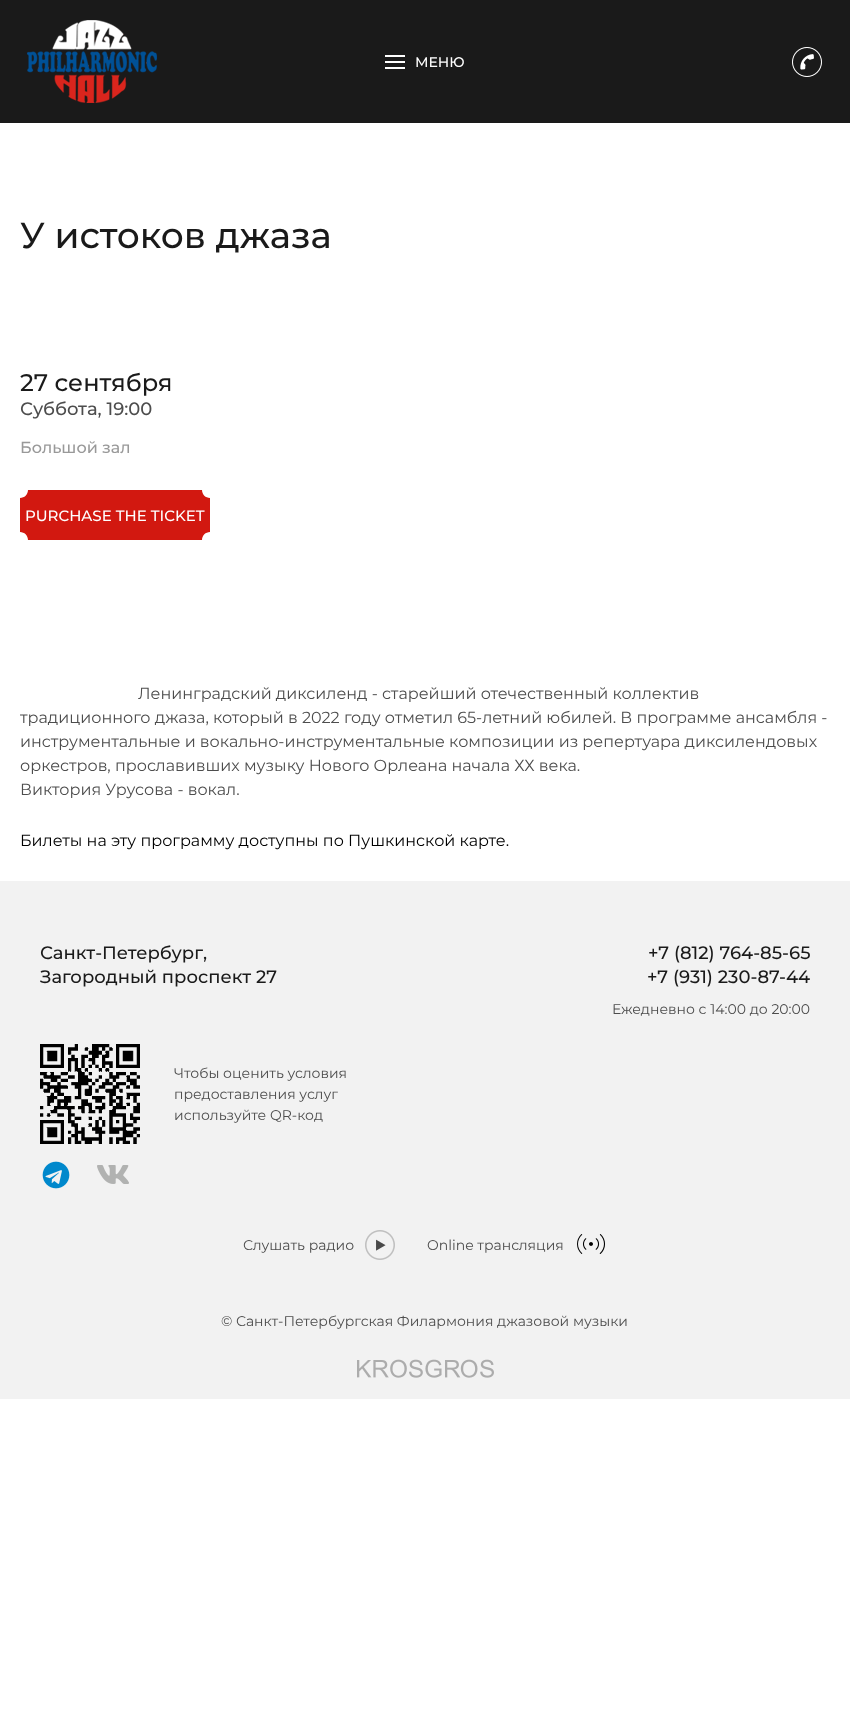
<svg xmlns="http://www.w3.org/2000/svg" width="850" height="1732">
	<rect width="100%" height="100%" fill="#FFFFFF" />
	<rect x="0" y="0" width="850" height="123" fill="#1A1A1A" />
	<image x="27" y="20" width="130" height="83" href="assets/img1.png" />
	<image x="385" y="55" width="20" height="14" href="assets/img2.png" />
	<text x="415" y="67" font-family="Montserrat" font-size="14" font-weight="500" fill="#FFFFFF">МЕНЮ</text>
	<image x="792" y="47" width="30" height="30" href="assets/img3.png" />
	<text x="20" y="248" font-family="Montserrat" font-size="36" font-weight="500" fill="#1A1A1A">У истоков джаза</text>
	<text x="20" y="391" font-family="Montserrat" font-size="24" font-weight="500" fill="#1A1A1A">27 сентября</text>
	<text x="20" y="415" font-family="Montserrat" font-size="18" font-weight="500" fill="#4D4D4D">Суббота, 19:00</text>
	<text x="20" y="453" font-family="Montserrat" font-size="16" font-weight="500" fill="#999999">Большой зал</text>
	<image x="20" y="490" width="190" height="50" href="assets/img4.png" />
	<text x="25" y="521" font-family="Montserrat" font-size="15" font-weight="500" fill="#FFFFFF">PURCHASE THE TICKET</text>
	<g font-family="Montserrat" font-size="16" fill="#4D4D4D">
		<text x="138" y="699">Ленинградский диксиленд - старейший отечественный коллектив</text>
		<text x="20" y="723">традиционного джаза, который в 2022 году отметил 65-летний юбилей. В программе ансамбля -</text>
		<text x="20" y="747">инструментальные и вокально-инструментальные композиции из репертуара диксилендовых</text>
		<text x="20" y="771">оркестров, прославивших музыку Нового Орлеана начала ХХ века.</text>
		<text x="20" y="795">Виктория Урусова - вокал.</text>
	</g>
	<text x="20" y="846" font-family="Montserrat" font-size="16" fill="#000000">Билеты на эту программу доступны по Пушкинской карте.</text>
	<rect x="0" y="881" width="850" height="518" fill="#F2F2F2" />
	<g font-family="Montserrat" font-size="18" font-weight="500" fill="#1A1A1A">
		<text x="40" y="959">Санкт-Петербург,</text>
		<text x="40" y="983">Загородный проспект 27</text>
		<text x="648" y="959">+7 (812) 764-85-65</text>
		<text x="647" y="983">+7 (931) 230-87-44</text>
	</g>
	<text x="612" y="1014" font-family="Montserrat" font-size="14" fill="#4D4D4D">Ежедневно с 14:00 до 20:00</text>
	<image x="40" y="1044" width="100" height="100" href="assets/img5.png" />
	<g font-family="Montserrat" font-size="14" fill="#4D4D4D">
		<text x="174" y="1078">Чтобы оценить условия</text>
		<text x="174" y="1099">предоставления услуг</text>
		<text x="174" y="1120">используйте QR-код</text>
	</g>
	<image x="42" y="1161" width="28" height="28" href="assets/img6.png" />
	<image x="97" y="1165" width="32" height="19" href="assets/img7.png" />
	<text x="243" y="1250" font-family="Montserrat" font-size="14" fill="#4D4D4D">Слушать радио</text>
	<image x="365" y="1230" width="30" height="30" href="assets/img8.png" />
	<text x="427" y="1250" font-family="Montserrat" font-size="14" fill="#4D4D4D">Online трансляция</text>
	<image x="577" y="1234" width="28" height="20" href="assets/img9.png" />
	<text x="221" y="1326" font-family="Montserrat" font-size="14" fill="#4D4D4D">© Санкт-Петербургская Филармония джазовой музыки</text>
	<image x="357" y="1359" width="137" height="19" href="assets/img10.png" />
</svg>
